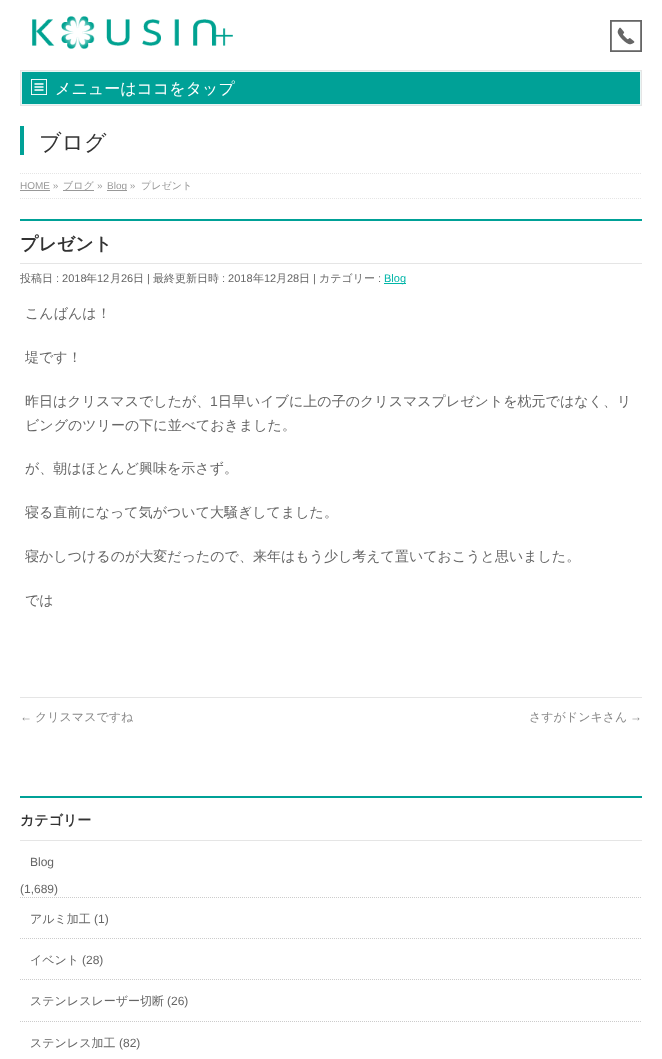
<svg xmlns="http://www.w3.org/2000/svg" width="662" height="1059">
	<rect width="100%" height="100%" fill="#FFFFFF" />
	<image x="32" y="16" width="201" height="33" href="assets/img1.png" />
	<image x="610" y="20" width="32" height="32" href="assets/img2.png" />
	<rect x="21.5" y="71.5" width="619" height="33" fill="#00A197" stroke="#E6F6F5" />
	<rect x="20.5" y="70.5" width="621" height="35" fill="none" stroke="#E5E5E5" />
	<image x="31" y="79" width="16" height="16" href="assets/img3.png" />
	<text x="55" y="94" font-family="WenQuanYi Zen Hei" font-size="16" font-weight="500" fill="#FFFFFF">メニューはココをタップ</text>
	<rect x="20" y="126" width="4" height="29" fill="#00A197" />
	<text x="39" y="150" font-family="WenQuanYi Zen Hei" font-size="22" font-weight="500" fill="#333333">ブログ</text>
	<path d="M20 173.5H642" fill="none" stroke="#E5E5E5" stroke-dasharray="1 1" />
	<path d="M20 198.5H642" fill="none" stroke="#E5E5E5" stroke-dasharray="1 1" />
	<text x="20" y="189" font-family="Liberation Sans" font-size="10" fill="#999999">HOME »</text>
	<rect x="20" y="190" width="30" height="1" fill="#999999" />
	<rect x="63" y="190" width="31" height="1" fill="#999999" />
	<text x="63" y="189" font-family="WenQuanYi Zen Hei" font-size="10" font-weight="500" fill="#999999">ブログ</text>
	<text x="97" y="189" font-family="Liberation Sans" font-size="10" fill="#999999">»</text>
	<rect x="107" y="190" width="20" height="1" fill="#999999" />
	<text x="107" y="189" font-family="Liberation Sans" font-size="10" fill="#999999">Blog »</text>
	<text x="141" y="189" font-family="WenQuanYi Zen Hei" font-size="10" font-weight="500" fill="#999999">プレゼント</text>
	<rect x="20" y="219" width="622" height="2" fill="#00A197" />
	<rect x="20" y="263" width="622" height="1" fill="#E5E5E5" />
	<text x="20" y="250" font-family="WenQuanYi Zen Hei" font-size="18" font-weight="700" fill="#333333">プレゼント</text>
	<text x="20" y="282" font-family="WenQuanYi Zen Hei" font-size="11" font-weight="500" fill="#666666">投稿日</text>
	<text x="56" y="282" font-family="Liberation Sans" font-size="11" fill="#666666">: 2018</text>
	<text x="86" y="282" font-family="WenQuanYi Zen Hei" font-size="11" font-weight="500" fill="#666666">年</text>
	<text x="97" y="282" font-family="Liberation Sans" font-size="11" fill="#666666">12</text>
	<text x="110" y="282" font-family="WenQuanYi Zen Hei" font-size="11" font-weight="500" fill="#666666">月</text>
	<text x="121" y="282" font-family="Liberation Sans" font-size="11" fill="#666666">26</text>
	<text x="133" y="282" font-family="WenQuanYi Zen Hei" font-size="11" font-weight="500" fill="#666666">日</text>
	<text x="147" y="282" font-family="Liberation Sans" font-size="11" fill="#666666">|</text>
	<text x="153" y="282" font-family="WenQuanYi Zen Hei" font-size="11" font-weight="500" fill="#666666">最終更新日時</text>
	<text x="222" y="282" font-family="Liberation Sans" font-size="11" fill="#666666">: 2018</text>
	<text x="253" y="282" font-family="WenQuanYi Zen Hei" font-size="11" font-weight="500" fill="#666666">年</text>
	<text x="264" y="282" font-family="Liberation Sans" font-size="11" fill="#666666">12</text>
	<text x="276" y="282" font-family="WenQuanYi Zen Hei" font-size="11" font-weight="500" fill="#666666">月</text>
	<text x="287" y="282" font-family="Liberation Sans" font-size="11" fill="#666666">28</text>
	<text x="299" y="282" font-family="WenQuanYi Zen Hei" font-size="11" font-weight="500" fill="#666666">日</text>
	<text x="313" y="282" font-family="Liberation Sans" font-size="11" fill="#666666">|</text>
	<text x="319" y="282" font-family="WenQuanYi Zen Hei" font-size="11" font-weight="500" fill="#666666">カテゴリー</text>
	<text x="378" y="282" font-family="Liberation Sans" font-size="11" fill="#666666">:</text>
	<rect x="384" y="283" width="22" height="1" fill="#00B5A8" />
	<text x="384" y="282" font-family="Liberation Sans" font-size="11" fill="#00B5A8">Blog</text>
	<g font-family="WenQuanYi Zen Hei" font-size="14" font-weight="500" fill="#666666">
		<text x="25" y="318">こんばんは！</text>
		<text x="25" y="362">堤です！</text>
		<text x="25" y="406">昨日はクリスマスでしたが、</text>
	</g>
	<text x="210" y="406" font-family="Liberation Sans" font-size="14" fill="#666666">1</text>
	<g font-family="WenQuanYi Zen Hei" font-size="14" font-weight="500" fill="#666666">
		<text x="218" y="406">日早いイブに上の子のクリスマスプレゼントを枕元ではなく、リ</text>
		<text x="25" y="430">ビングのツリーの下に並べておきました。</text>
		<text x="25" y="473">が、朝はほとんど興味を示さず。</text>
		<text x="25" y="517">寝る直前になって気がついて大騒ぎしてました。</text>
		<text x="25" y="561">寝かしつけるのが大変だったので、来年はもう少し考えて置いておこうと思いました。</text>
		<text x="25" y="605">では</text>
	</g>
	<rect x="20" y="697" width="622" height="1" fill="#E5E5E5" />
	<text x="20" y="721" font-family="Liberation Sans" font-size="12" fill="#888888">←</text>
	<g font-family="WenQuanYi Zen Hei" font-size="12" font-weight="500" fill="#888888">
		<text x="35" y="721">クリスマスですね</text>
		<text x="529" y="721">さすがドンキさん</text>
	</g>
	<text x="630" y="721" font-family="Liberation Sans" font-size="12" fill="#888888">→</text>
	<rect x="20" y="796" width="622" height="2" fill="#00A197" />
	<rect x="20" y="840" width="622" height="1" fill="#E5E5E5" />
	<text x="20" y="825" font-family="WenQuanYi Zen Hei" font-size="14" font-weight="700" fill="#333333">カテゴリー</text>
	<path d="M20 897.5H642" fill="none" stroke="#CCCCCC" stroke-dasharray="1 1" />
	<g font-family="Liberation Sans" font-size="12" fill="#666666">
		<text x="30" y="866">Blog</text>
		<text x="20" y="893">(1,689)</text>
	</g>
	<path d="M20 938.5H642" fill="none" stroke="#CCCCCC" stroke-dasharray="1 1" />
	<text x="30" y="923" font-family="WenQuanYi Zen Hei" font-size="12" font-weight="500" fill="#666666">アルミ加工</text>
	<text x="94" y="923" font-family="Liberation Sans" font-size="12" fill="#666666">(1)</text>
	<path d="M20 979.5H642" fill="none" stroke="#CCCCCC" stroke-dasharray="1 1" />
	<text x="30" y="964" font-family="WenQuanYi Zen Hei" font-size="12" font-weight="500" fill="#666666">イベント</text>
	<text x="82" y="964" font-family="Liberation Sans" font-size="12" fill="#666666">(28)</text>
	<path d="M20 1021.5H642" fill="none" stroke="#CCCCCC" stroke-dasharray="1 1" />
	<text x="30" y="1005" font-family="WenQuanYi Zen Hei" font-size="12" font-weight="500" fill="#666666">ステンレスレーザー切断</text>
	<text x="167" y="1005" font-family="Liberation Sans" font-size="12" fill="#666666">(26)</text>
	<text x="30" y="1047" font-family="WenQuanYi Zen Hei" font-size="12" font-weight="500" fill="#666666">ステンレス加工</text>
	<text x="119" y="1047" font-family="Liberation Sans" font-size="12" fill="#666666">(82)</text>
</svg>
